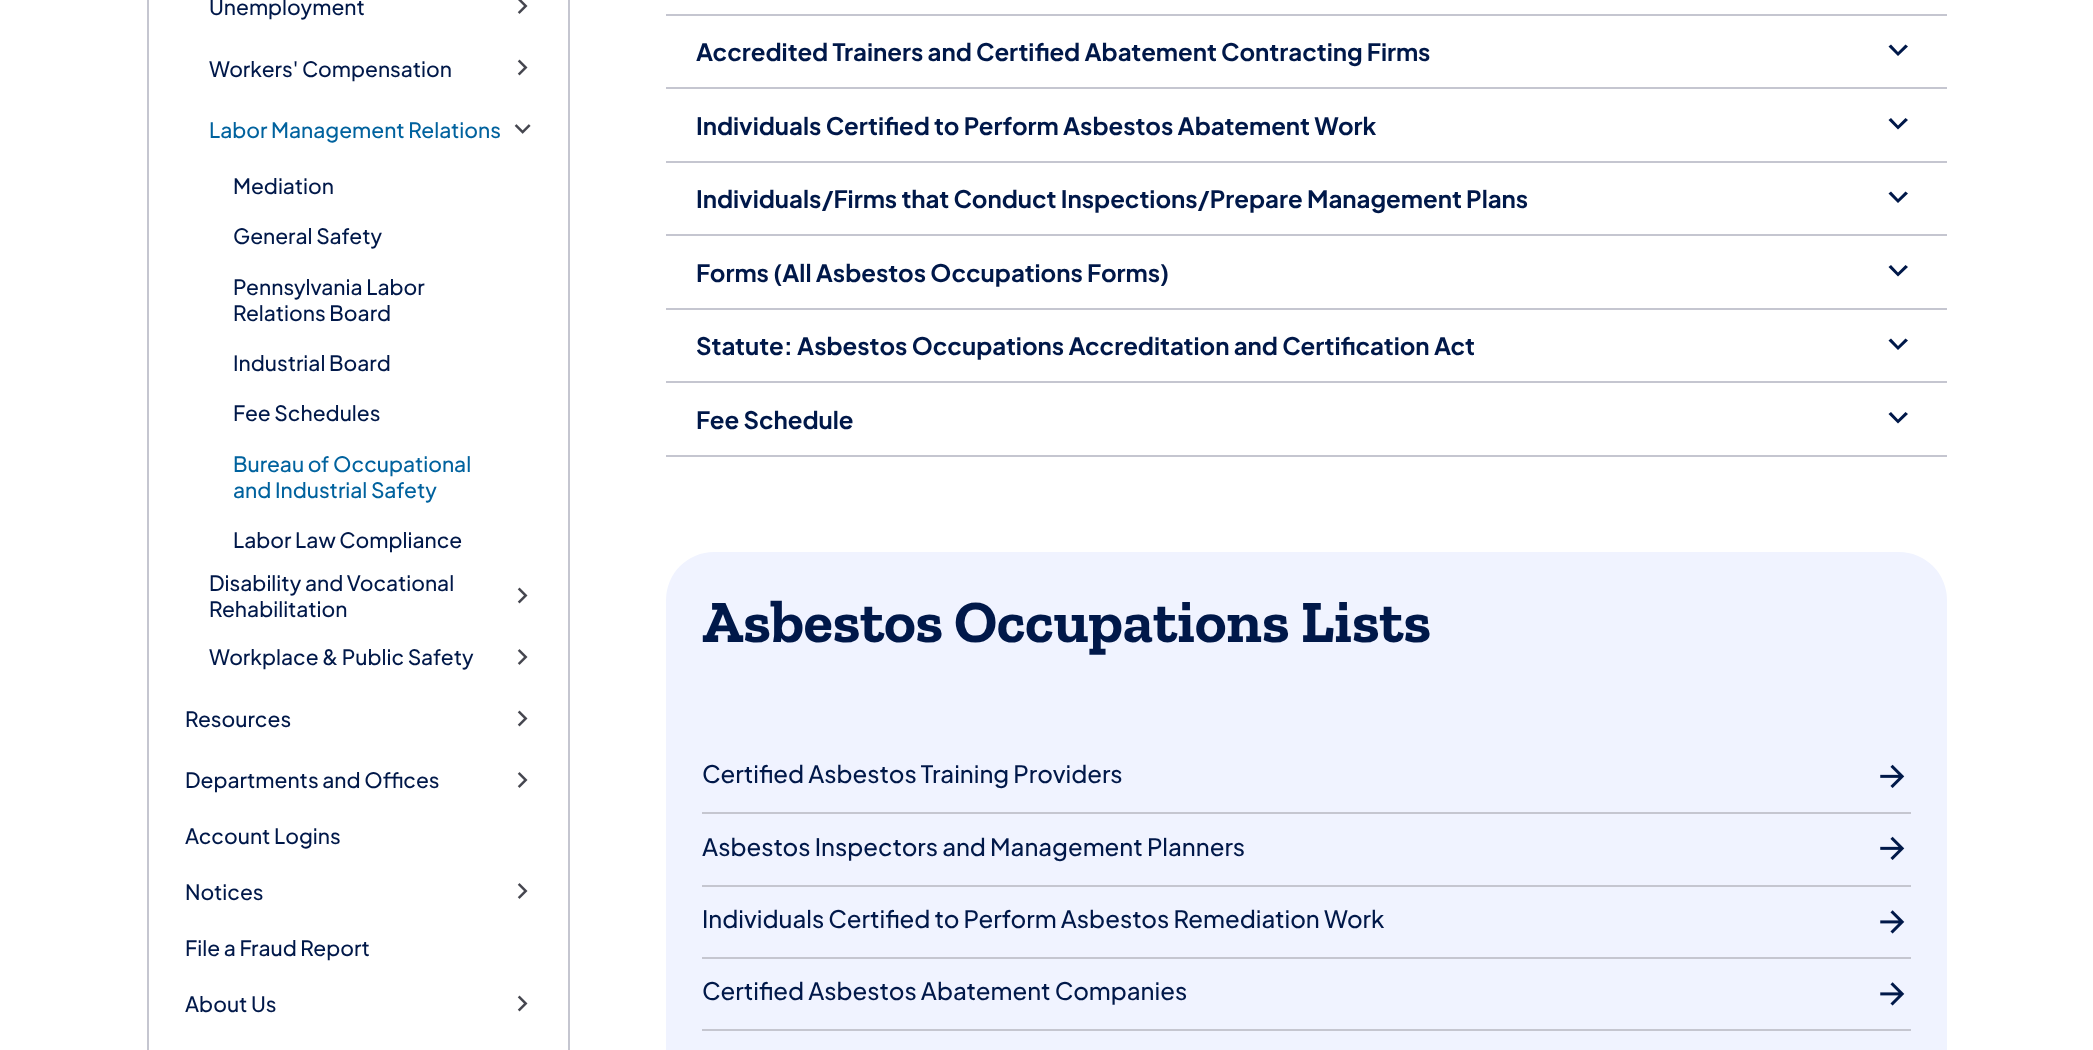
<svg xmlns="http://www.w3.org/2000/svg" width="2093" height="1050">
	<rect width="100%" height="100%" fill="#FFFFFF" />
	<rect x="148" y="-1" width="421" height="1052" fill="none" stroke="#C5C6D0" stroke-width="2" />
	<text x="209" y="15" font-family="Plus Jakarta Sans" font-size="21" font-weight="500" fill="#001849">Unemployment</text>
	<image x="517" y="0" width="11" height="14" href="assets/img1.png" />
	<text x="209" y="77" font-family="Plus Jakarta Sans" font-size="21" font-weight="500" fill="#001849">Workers' Compensation</text>
	<image x="517" y="59" width="11" height="17" href="assets/img2.png" />
	<text x="209" y="138" font-family="Plus Jakarta Sans" font-size="21" font-weight="500" fill="#00629E">Labor Management Relations</text>
	<image x="514" y="124" width="17" height="10" href="assets/img3.png" />
	<g font-family="Plus Jakarta Sans" font-size="21" font-weight="500" fill="#001849">
		<text x="233" y="194">Mediation</text>
		<text x="233" y="244">General Safety</text>
		<text x="233" y="295">Pennsylvania Labor</text>
		<text x="233" y="321">Relations Board</text>
		<text x="233" y="371">Industrial Board</text>
		<text x="233" y="421">Fee Schedules</text>
	</g>
	<g font-family="Plus Jakarta Sans" font-size="21" font-weight="500" fill="#00629E">
		<text x="233" y="472">Bureau of Occupational</text>
		<text x="233" y="498">and Industrial Safety</text>
	</g>
	<g font-family="Plus Jakarta Sans" font-size="21" font-weight="500" fill="#001849">
		<text x="233" y="548">Labor Law Compliance</text>
		<text x="209" y="591">Disability and Vocational</text>
		<text x="209" y="617">Rehabilitation</text>
	</g>
	<image x="517" y="587" width="11" height="17" href="assets/img2.png" />
	<text x="209" y="665" font-family="Plus Jakarta Sans" font-size="21" font-weight="500" fill="#001849">Workplace &amp; Public Safety</text>
	<image x="517" y="649" width="11" height="16" href="assets/img4.png" />
	<text x="185" y="727" font-family="Plus Jakarta Sans" font-size="21" font-weight="500" fill="#001849">Resources</text>
	<image x="517" y="710" width="11" height="17" href="assets/img2.png" />
	<text x="185" y="788" font-family="Plus Jakarta Sans" font-size="21" font-weight="500" fill="#001849">Departments and Offices</text>
	<image x="517" y="772" width="11" height="16" href="assets/img4.png" />
	<g font-family="Plus Jakarta Sans" font-size="21" font-weight="500" fill="#001849">
		<text x="185" y="844">Account Logins</text>
		<text x="185" y="900">Notices</text>
	</g>
	<image x="517" y="883" width="11" height="16" href="assets/img4.png" />
	<g font-family="Plus Jakarta Sans" font-size="21" font-weight="500" fill="#001849">
		<text x="185" y="956">File a Fraud Report</text>
		<text x="185" y="1012">About Us</text>
	</g>
	<image x="517" y="995" width="11" height="17" href="assets/img2.png" />
	<rect x="666" y="14" width="1281" height="2" fill="#C5C6D0" />
	<text x="696" y="61" font-family="Plus Jakarta Sans" font-size="24" font-weight="700" fill="#001849">Accredited Trainers and Certified Abatement Contracting Firms</text>
	<path d="M1898 52L1905.5 44.5L1908 46.5L1898 56L1888.5 46.5L1891 44.5Z" fill="#001849" />
	<rect x="666" y="87" width="1281" height="2" fill="#C5C6D0" />
	<text x="696" y="135" font-family="Plus Jakarta Sans" font-size="24" font-weight="700" fill="#001849">Individuals Certified to Perform Asbestos Abatement Work</text>
	<path d="M1898 125.5L1905.5 118L1908 120L1898 129.5L1888.5 120L1891 118Z" fill="#001849" />
	<rect x="666" y="161" width="1281" height="2" fill="#C5C6D0" />
	<text x="696" y="208" font-family="Plus Jakarta Sans" font-size="24" font-weight="700" fill="#001849">Individuals/Firms that Conduct Inspections/Prepare Management Plans</text>
	<path d="M1898 199L1905.5 191.5L1908 193.5L1898 203L1888.5 193.5L1891 191.5Z" fill="#001849" />
	<rect x="666" y="234" width="1281" height="2" fill="#C5C6D0" />
	<text x="696" y="282" font-family="Plus Jakarta Sans" font-size="24" font-weight="700" fill="#001849">Forms (All Asbestos Occupations Forms)</text>
	<path d="M1898 272.5L1905.5 265L1908 267L1898 276.5L1888.5 267L1891 265Z" fill="#001849" />
	<rect x="666" y="308" width="1281" height="2" fill="#C5C6D0" />
	<text x="696" y="355" font-family="Plus Jakarta Sans" font-size="24" font-weight="700" fill="#001849">Statute: Asbestos Occupations Accreditation and Certification Act</text>
	<path d="M1898 346L1905.5 338.5L1908 340.5L1898 350L1888.5 340.5L1891 338.5Z" fill="#001849" />
	<rect x="666" y="381" width="1281" height="2" fill="#C5C6D0" />
	<rect x="666" y="455" width="1281" height="2" fill="#C5C6D0" />
	<text x="696" y="429" font-family="Plus Jakarta Sans" font-size="24" font-weight="700" fill="#001849">Fee Schedule</text>
	<path d="M1898 419.5L1905.5 412L1908 414L1898 423.5L1888.5 414L1891 412Z" fill="#001849" />
	<rect x="666" y="552" width="1281" height="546" rx="48" fill="#F0F3FF" />
	<text x="702" y="642" font-family="Zilla Slab" font-size="60" font-weight="700" fill="#001849">Asbestos Occupations Lists</text>
	<rect x="702" y="812" width="1209" height="2" fill="#C5C6D0" />
	<text x="702" y="783" font-family="Plus Jakarta Sans" font-size="24" font-weight="500" fill="#001849">Certified Asbestos Training Providers</text>
	<image x="1880" y="764" width="25" height="24" href="assets/img5.png" />
	<rect x="702" y="885" width="1209" height="2" fill="#C5C6D0" />
	<text x="702" y="856" font-family="Plus Jakarta Sans" font-size="24" font-weight="500" fill="#001849">Asbestos Inspectors and Management Planners</text>
	<image x="1880" y="836" width="25" height="24" href="assets/img5.png" />
	<rect x="702" y="957" width="1209" height="2" fill="#C5C6D0" />
	<text x="702" y="928" font-family="Plus Jakarta Sans" font-size="24" font-weight="500" fill="#001849">Individuals Certified to Perform Asbestos Remediation Work</text>
	<image x="1880" y="910" width="25" height="24" href="assets/img6.png" />
	<rect x="702" y="1029" width="1209" height="2" fill="#C5C6D0" />
	<text x="702" y="1000" font-family="Plus Jakarta Sans" font-size="24" font-weight="500" fill="#001849">Certified Asbestos Abatement Companies</text>
	<image x="1880" y="982" width="25" height="24" href="assets/img6.png" />
</svg>
